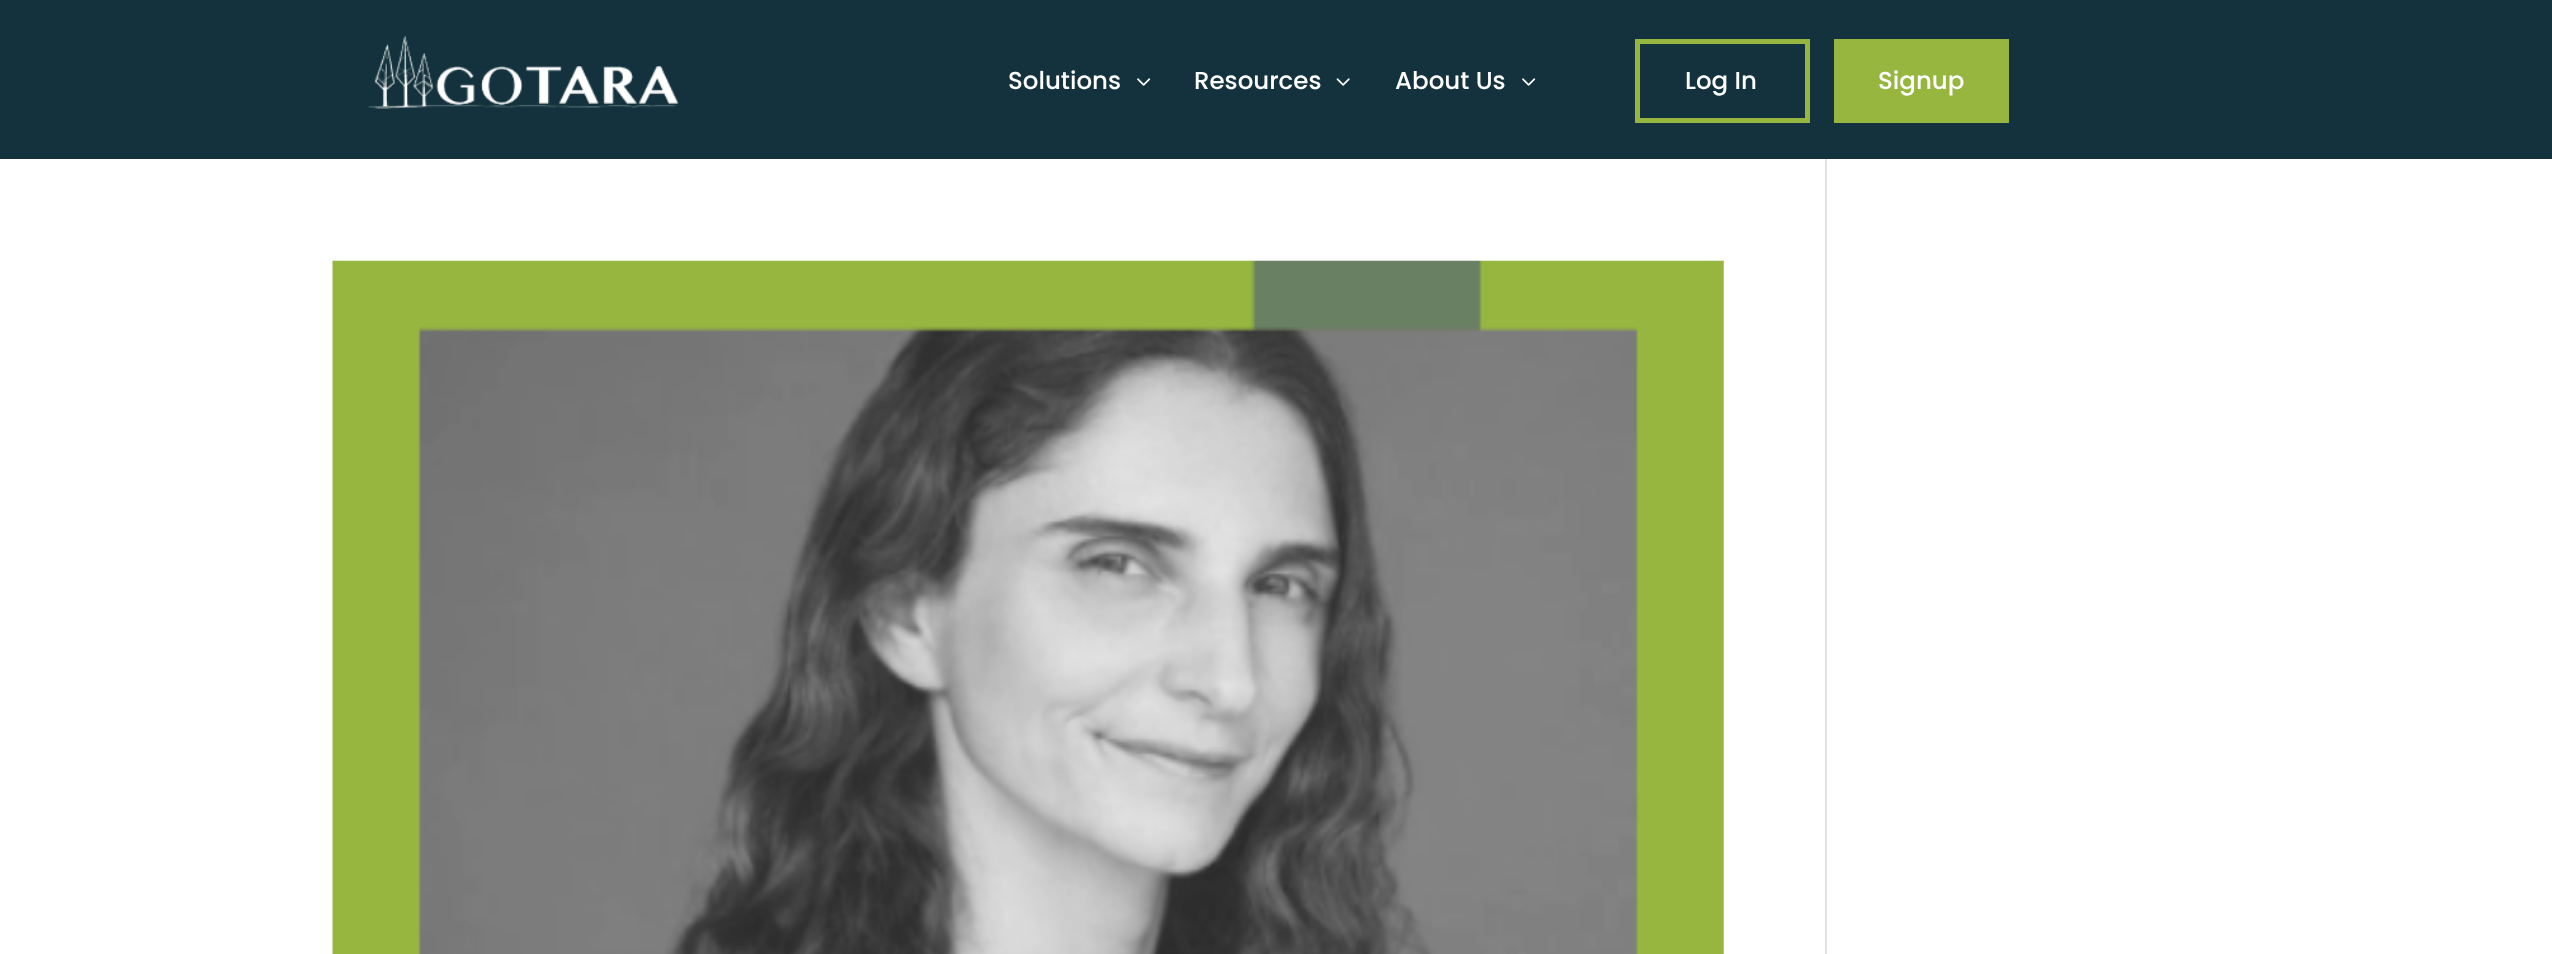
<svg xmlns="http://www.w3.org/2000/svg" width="2552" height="954">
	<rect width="100%" height="100%" fill="#FFFFFF" />
	<rect x="0" y="0" width="2552" height="159" fill="#13323D" />
	<image x="367" y="36" width="312" height="73" href="assets/img1.png" />
	<text x="1008" y="89" font-family="Poppins" font-size="24.5" font-weight="500" fill="#FFFFFF">Solutions</text>
	<image x="1137" y="78" width="14" height="8" href="assets/img2.png" />
	<text x="1194" y="89" font-family="Poppins" font-size="24.5" font-weight="500" fill="#FFFFFF">Resources</text>
	<image x="1336" y="78" width="14" height="8" href="assets/img3.png" />
	<text x="1395" y="89" font-family="Poppins" font-size="24.5" font-weight="500" fill="#FFFFFF">About Us</text>
	<image x="1522" y="78" width="14" height="8" href="assets/img2.png" />
	<rect x="1637.5" y="41.5" width="170" height="79" fill="none" stroke="#97B63F" stroke-width="5" />
	<text x="1685" y="89" font-family="Poppins" font-size="24.5" font-weight="500" fill="#FFFFFF">Log In</text>
	<rect x="1834" y="39" width="175" height="84" fill="#97B63F" />
	<text x="1878" y="89" font-family="Poppins" font-size="24.5" font-weight="500" fill="#FFFFFF">Signup</text>
	<image x="332" y="260" width="1392" height="694" href="assets/img4.png" />
	<rect x="1825" y="159" width="2" height="795" fill="#E2E2E2" />
</svg>
